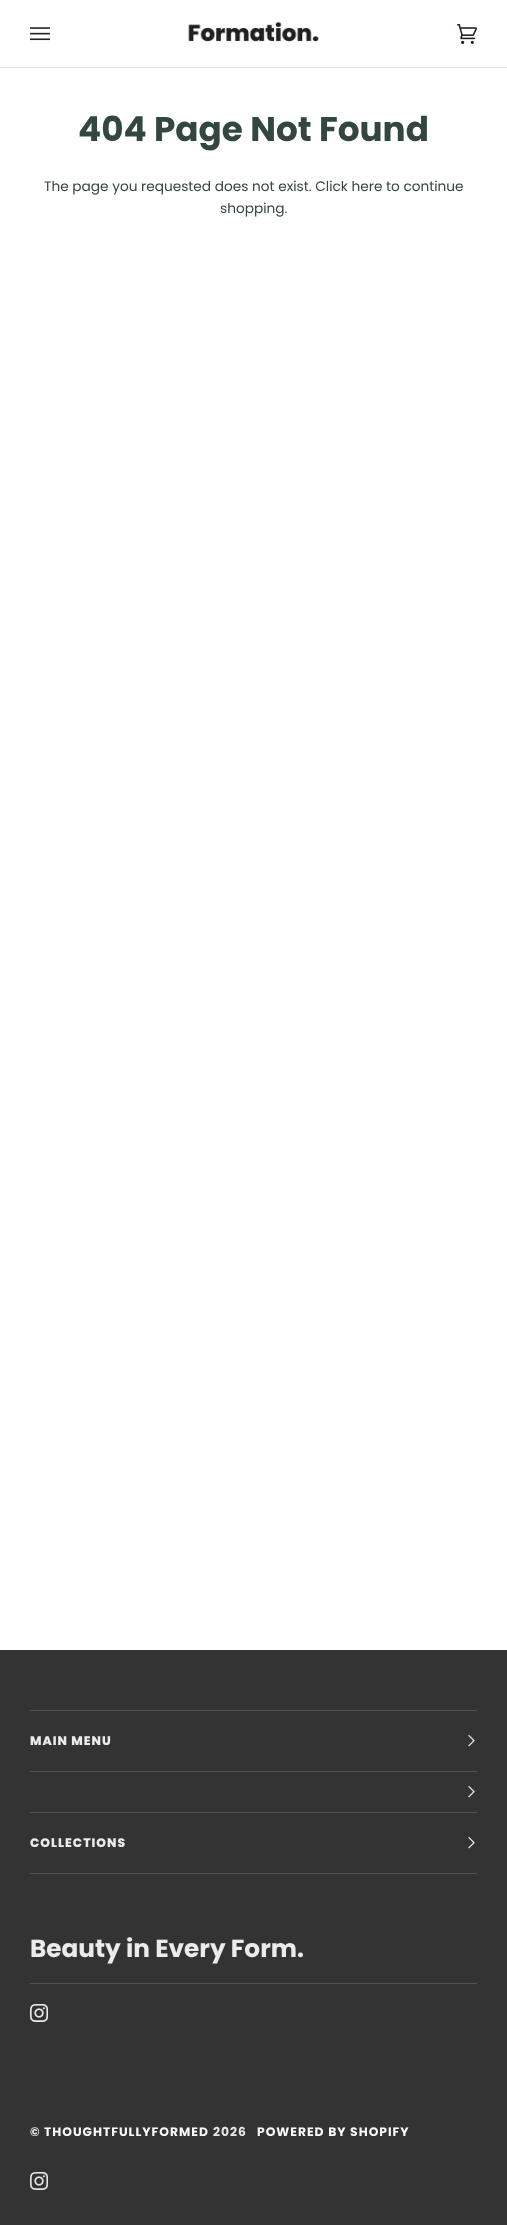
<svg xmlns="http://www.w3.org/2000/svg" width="507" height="2225">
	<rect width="100%" height="100%" fill="#FFFFFF" />
	<rect x="0" y="67" width="507" height="1" fill="#E9E2D6" />
	<image x="30" y="27" width="20" height="14" href="assets/img1.png" />
	<image x="188" y="21" width="131" height="21" href="assets/img2.png" />
	<image x="457" y="24" width="20" height="20" href="assets/img3.png" />
	<text x="78" y="141" font-family="Poppins" font-size="34.25" font-weight="700" fill="#334641">404 Page Not Found</text>
	<g font-family="Poppins" font-size="13.7" fill="#334641">
		<text x="44" y="191">The page you requested does not exist. Click here to continue</text>
		<text x="220" y="213">shopping.</text>
	</g>
	<rect x="0" y="1650" width="507" height="575" fill="#333333" />
	<rect x="30" y="1710" width="447" height="1" fill="#525252" />
	<rect x="30" y="1771" width="447" height="1" fill="#525252" />
	<text x="30" y="1745" font-family="Poppins" font-size="12.3" font-weight="800" letter-spacing="1" fill="#EBEBEB">MAIN MENU</text>
	<image x="468" y="1735" width="7" height="12" href="assets/img4.png" />
	<rect x="30" y="1812" width="447" height="1" fill="#525252" />
	<image x="468" y="1786" width="7" height="12" href="assets/img4.png" />
	<rect x="30" y="1873" width="447" height="1" fill="#525252" />
	<text x="30" y="1847" font-family="Poppins" font-size="12.3" font-weight="800" letter-spacing="1" fill="#EBEBEB">COLLECTIONS</text>
	<image x="468" y="1837" width="7" height="12" href="assets/img4.png" />
	<text x="30" y="1957" font-family="Poppins" font-size="24.75" font-weight="700" fill="#EBEBEB">Beauty in Every Form.</text>
	<rect x="30" y="1983" width="447" height="1" fill="#525252" />
	<image x="30" y="2004" width="18" height="18" href="assets/img5.png" />
	<text x="30" y="2136" font-family="Poppins" font-size="12.3" font-weight="700" letter-spacing="1" fill="#E8E6E3">©</text>
	<text x="44" y="2136" font-family="Poppins" font-size="12.3" font-weight="700" letter-spacing="1" fill="#FCFAF7">THOUGHTFULLYFORMED</text>
	<text x="213" y="2136" font-family="Poppins" font-size="12.3" font-weight="700" letter-spacing="1" fill="#E8E6E3">2026</text>
	<text x="257" y="2136" font-family="Poppins" font-size="12.3" font-weight="700" letter-spacing="1" fill="#FCFAF7">POWERED BY SHOPIFY</text>
	<image x="30" y="2172" width="18" height="18" href="assets/img6.png" />
</svg>
